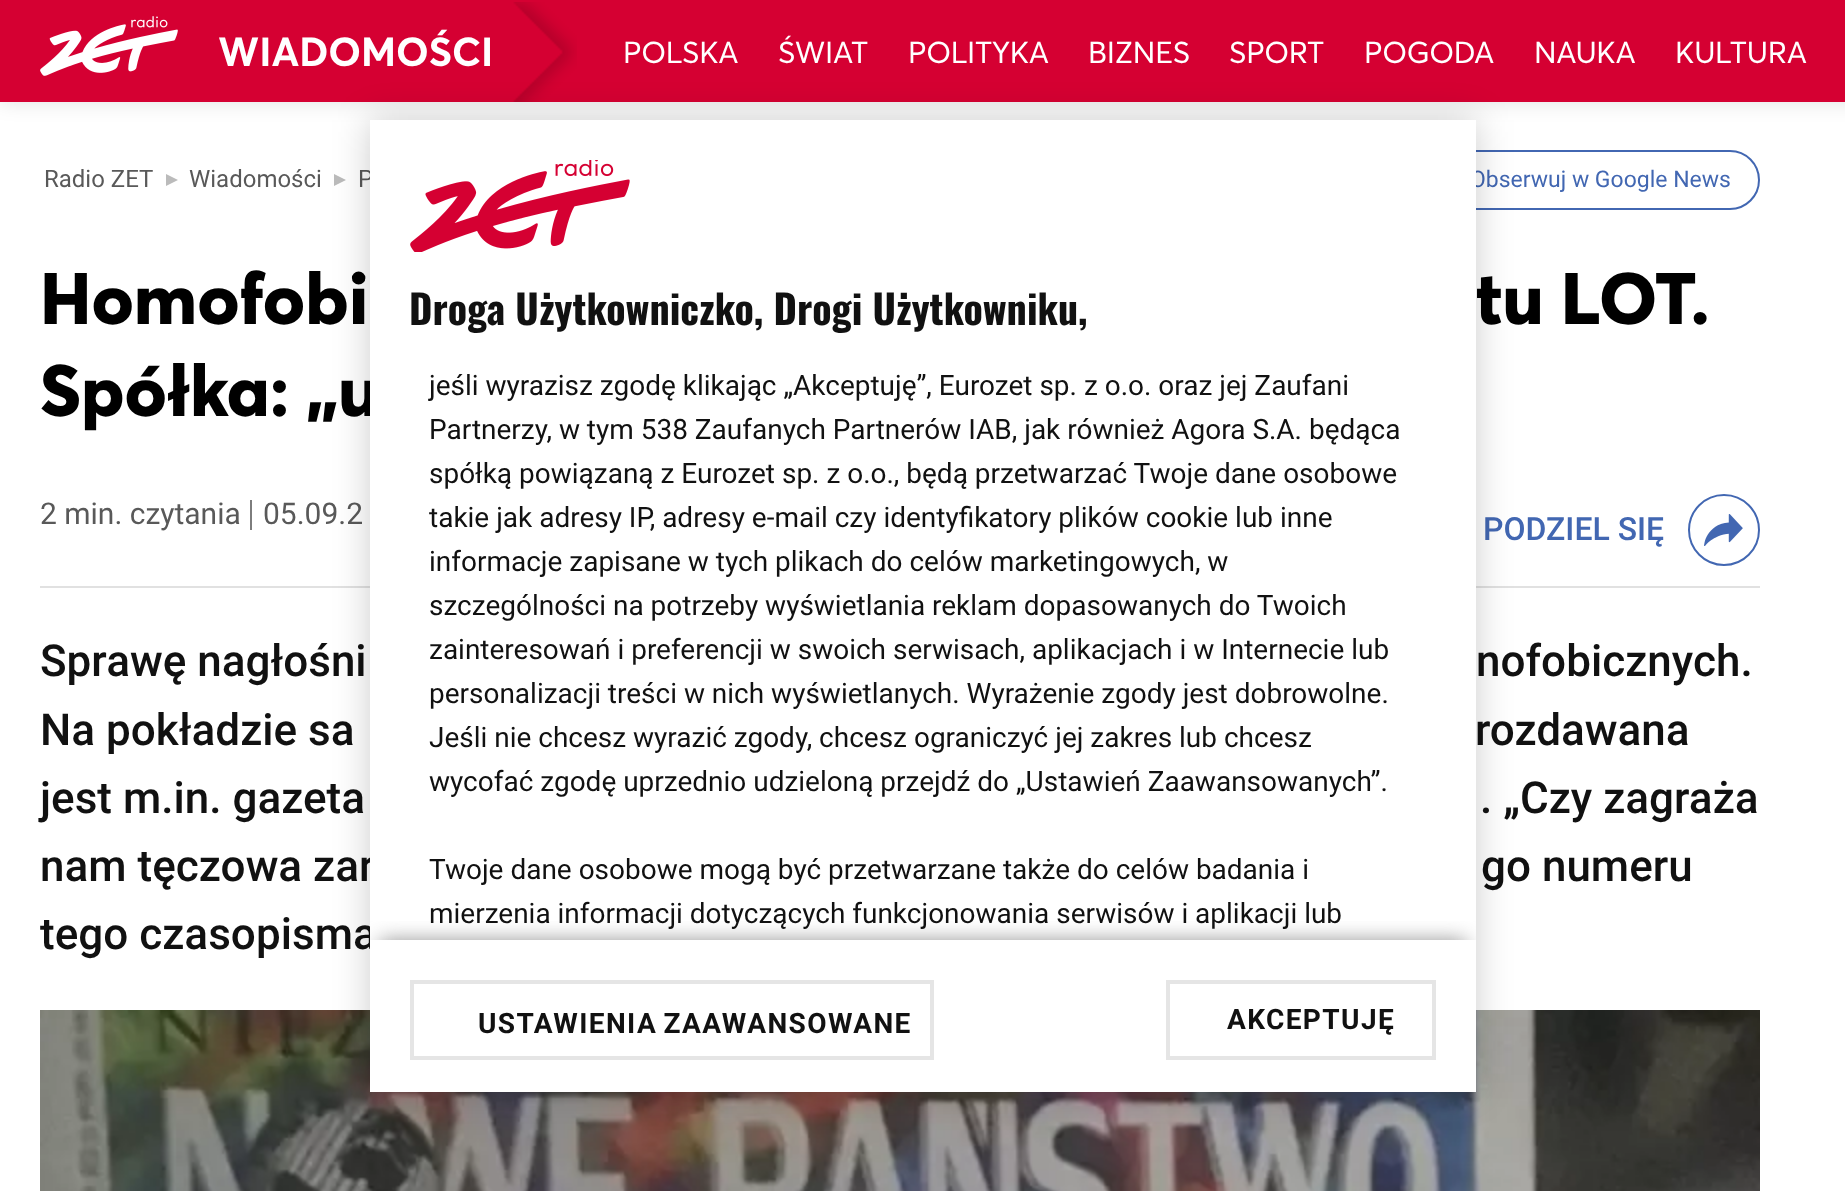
<svg xmlns="http://www.w3.org/2000/svg" width="1845" height="1191">
	<defs>
		<clipPath id="clip1"><rect x="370" y="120" width="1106" height="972" /></clipPath>
		<clipPath id="clip2"><rect x="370" y="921" width="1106" height="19" /></clipPath>
	</defs>
	<rect width="100%" height="100%" fill="#FFFFFF" />
	<rect x="0" y="0" width="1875" height="102" fill="#000000" fill-opacity="0.12" filter="blur(10px)" />
	<rect x="0" y="0" width="1845" height="102" fill="#D50032" />
	<image x="513" y="2" width="64" height="100" href="assets/img1.png" />
	<image x="40" y="16" width="138" height="60" href="assets/img2.png" />
	<text x="218" y="66" font-family="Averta" font-size="40" font-weight="700" fill="#FFFFFF">WIADOMOŚCI</text>
	<g font-family="Averta" font-size="30" letter-spacing="-0.25" fill="#FFFFFF">
		<text x="623" y="63">POLSKA</text>
		<text x="778" y="63">ŚWIAT</text>
		<text x="908" y="63">POLITYKA</text>
		<text x="1088" y="63">BIZNES</text>
		<text x="1229" y="63">SPORT</text>
		<text x="1364" y="63">POGODA</text>
		<text x="1534" y="63">NAUKA</text>
		<text x="1675" y="63">KULTURA</text>
	</g>
	<text x="44" y="187" font-family="Roboto" font-size="24" fill="#595959">Radio ZET</text>
	<path d="M166 186V174L178 180Z" fill="#BBBBBB" />
	<text x="189" y="187" font-family="Roboto" font-size="24" fill="#595959">Wiadomości</text>
	<path d="M334 186V174L346 180Z" fill="#BBBBBB" />
	<text x="358" y="187" font-family="Roboto" font-size="24" fill="#595959">P</text>
	<rect x="1401" y="151" width="358" height="58" rx="29" fill="none" stroke="#4267B2" stroke-width="2" />
	<text x="1470" y="187" font-family="Roboto" font-size="23" fill="#4267B2">Obserwuj w Google News</text>
	<g font-family="Averta" font-size="72" font-weight="800" fill="#000000">
		<text x="40" y="324">Homofobi</text>
		<text x="1476" y="324">tu LOT.</text>
		<text x="40" y="416">Spółka: „u</text>
	</g>
	<rect x="40" y="586" width="1720" height="2" fill="#E1E1E1" />
	<rect x="250" y="500" width="2" height="30" fill="#7D7D7D" />
	<g font-family="Roboto" font-size="30" fill="#595959">
		<text x="40" y="524">2 min. czytania</text>
		<text x="263" y="524">05.09.2</text>
	</g>
	<text x="1483" y="540" font-family="Roboto" font-size="32" font-weight="500" fill="#4267B2">PODZIEL SIĘ</text>
	<circle cx="1724" cy="530" r="35" fill="none" stroke="#4267B2" stroke-width="2" />
	<image x="1704" y="514" width="39" height="32" href="assets/img3.png" />
	<g font-family="Roboto" font-size="44" font-weight="500" fill="#111111">
		<text x="40" y="676">Sprawę nagłośni</text>
		<text x="1476" y="676">nofobicznych.</text>
		<text x="40" y="745">Na pokładzie sa</text>
		<text x="1475" y="745">rozdawana</text>
		<text x="40" y="813">jest m.in. gazeta</text>
		<text x="1480" y="813">. „Czy zagraża</text>
		<text x="40" y="881">nam tęczowa zar</text>
		<text x="1481" y="881">go numeru</text>
		<text x="40" y="949">tego czasopisma</text>
	</g>
	<image x="40" y="1010" width="1720" height="181" href="assets/img4.png" />
	<rect x="370" y="120" width="1106" height="972" fill="#000000" fill-opacity="0.2" filter="blur(18px)" />
	<rect x="370" y="120" width="1106" height="972" fill="#FFFFFF" />
	<image x="410" y="160" width="220" height="92" href="assets/img5.png" />
	<text x="409" y="325" font-family="Oswald" font-size="40" font-weight="700" fill="#111111">Droga Użytkowniczko, Drogi Użytkowniku,</text>
	<g font-family="Roboto" font-size="28" fill="#111111">
		<text x="429" y="395">jeśli wyrazisz zgodę klikając „Akceptuję”, Eurozet sp. z o.o. oraz jej Zaufani</text>
		<text x="429" y="439">Partnerzy, w tym 538 Zaufanych Partnerów IAB, jak również Agora S.A. będąca</text>
		<text x="429" y="483">spółką powiązaną z Eurozet sp. z o.o., będą przetwarzać Twoje dane osobowe</text>
		<text x="429" y="527">takie jak adresy IP, adresy e-mail czy identyfikatory plików cookie lub inne</text>
		<text x="429" y="571">informacje zapisane w tych plikach do celów marketingowych, w</text>
		<text x="429" y="615">szczególności na potrzeby wyświetlania reklam dopasowanych do Twoich</text>
		<text x="429" y="659">zainteresowań i preferencji w swoich serwisach, aplikacjach i w Internecie lub</text>
		<text x="429" y="703">personalizacji treści w nich wyświetlanych. Wyrażenie zgody jest dobrowolne.</text>
		<text x="429" y="747">Jeśli nie chcesz wyrazić zgody, chcesz ograniczyć jej zakres lub chcesz</text>
		<text x="429" y="791">wycofać zgodę uprzednio udzieloną przejdź do „Ustawień Zaawansowanych”.</text>
		<text x="429" y="879">Twoje dane osobowe mogą być przetwarzane także do celów badania i</text>
	</g>
	<g clip-path="url(#clip1)">
		<g clip-path="url(#clip2)">
			<rect x="380" y="940" width="1086" height="132" fill="#737373" fill-opacity="0.75" filter="blur(10px)" />
		</g>
	</g>
	<text x="429" y="923" font-family="Roboto" font-size="28" fill="#111111">mierzenia informacji dotyczących funkcjonowania serwisów i aplikacji lub</text>
	<rect x="412" y="982" width="520" height="76" fill="none" stroke="#E5E5E5" stroke-width="4" />
	<text x="478" y="1033" word-spacing="-2" font-family="Roboto" font-size="28" font-weight="700" letter-spacing="1.4" fill="#111111">USTAWIENIA ZAAWANSOWANE</text>
	<rect x="1168" y="982" width="266" height="76" fill="none" stroke="#E5E5E5" stroke-width="4" />
	<text x="1227" y="1029" font-family="Roboto" font-size="28" font-weight="700" letter-spacing="1.4" fill="#111111">AKCEPTUJĘ</text>
</svg>
